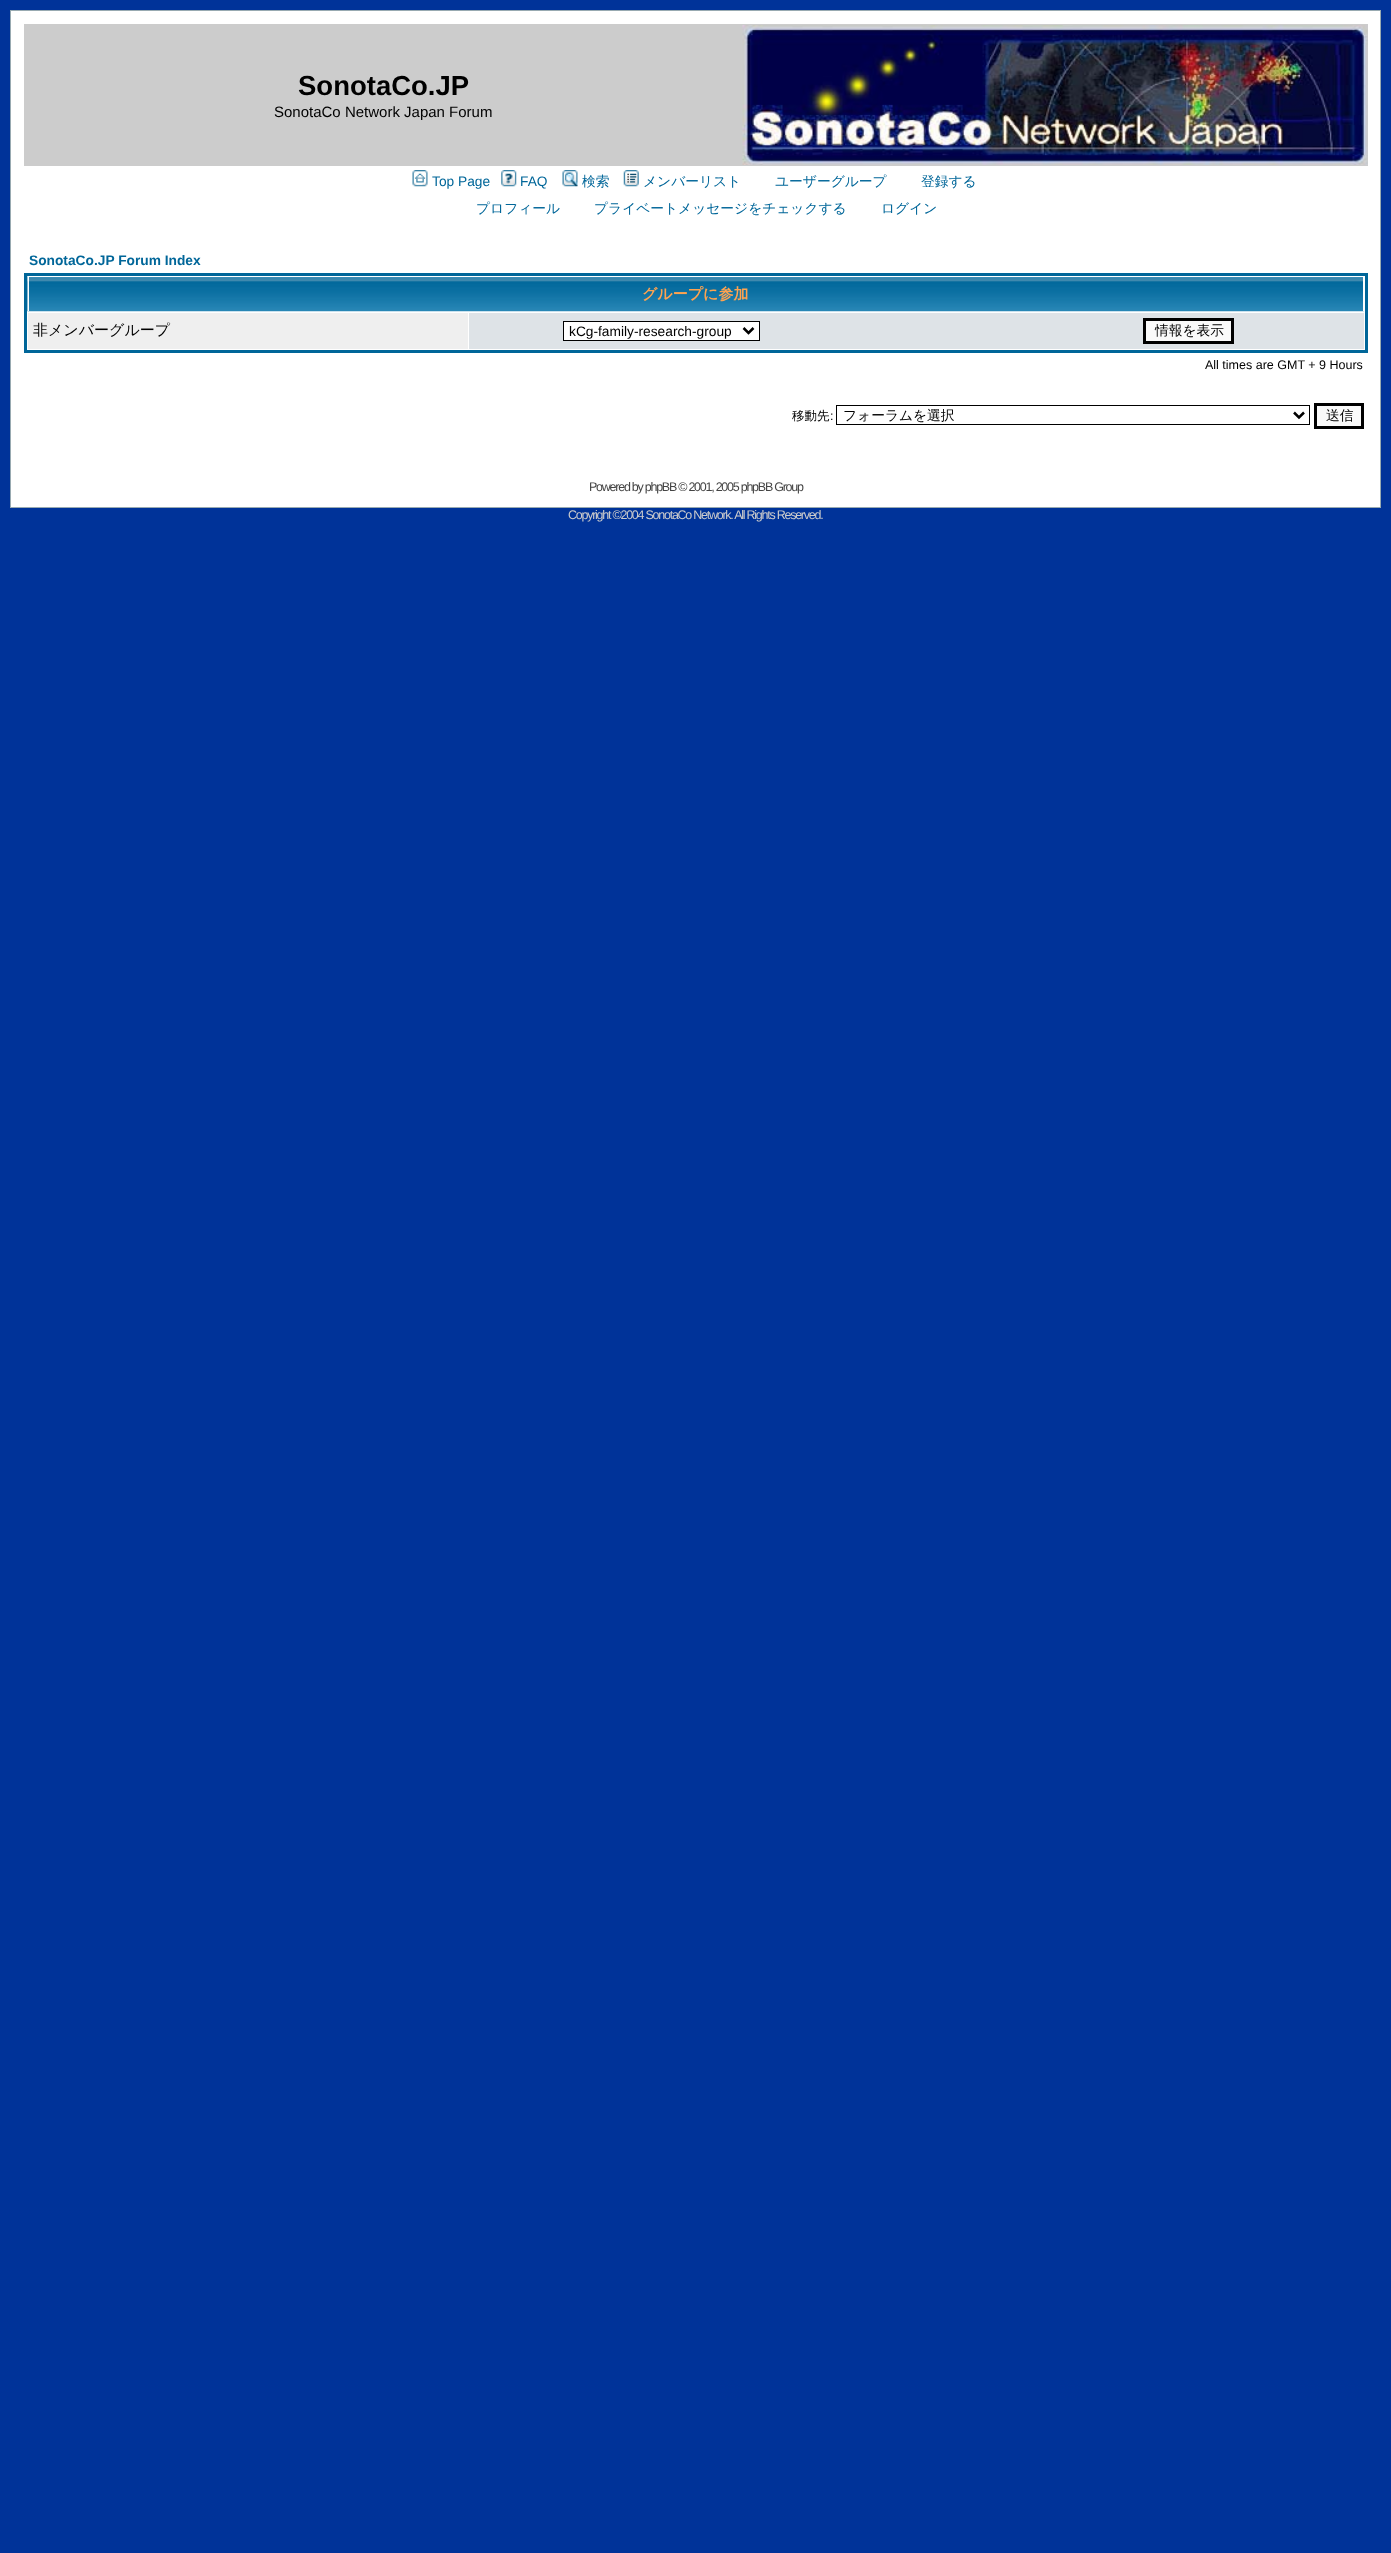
<svg xmlns="http://www.w3.org/2000/svg" width="1391" height="2553">
	<rect width="100%" height="100%" fill="#003399" />
	<rect x="10.5" y="10.5" width="1370" height="497" fill="#FFFFFF" stroke="#98AAB1" />
	<rect x="24" y="24" width="1344" height="142" fill="#CCCCCC" />
	<text x="298" y="95" font-family="Liberation Sans" font-size="27.5" font-weight="700" fill="#000000">SonotaCo.JP</text>
	<text x="274" y="117" font-family="Liberation Sans" font-size="15" fill="#000000">SonotaCo Network Japan Forum</text>
	<image x="742" y="25" width="626" height="140" href="assets/img1.png" />
	<image x="412" y="170" width="16" height="17" href="assets/img2.png" />
	<text x="432" y="186" font-family="Liberation Sans" font-size="13.75" fill="#006699">Top Page</text>
	<image x="501" y="170" width="16" height="17" href="assets/img3.png" />
	<text x="520" y="186" font-family="Liberation Sans" font-size="13.75" fill="#006699">FAQ</text>
	<image x="562" y="170" width="16" height="17" href="assets/img4.png" />
	<text x="582" y="186" font-family="WenQuanYi Zen Hei" font-size="13.75" font-weight="500" fill="#006699">検索</text>
	<image x="623" y="170" width="16" height="17" href="assets/img5.png" />
	<g font-family="WenQuanYi Zen Hei" font-size="13.75" font-weight="500" fill="#006699">
		<text x="643" y="186">メンバーリスト</text>
		<text x="775" y="186">ユーザーグループ</text>
		<text x="921" y="186">登録する</text>
		<text x="476" y="213">プロフィール</text>
		<text x="594" y="213">プライベートメッセージをチェックする</text>
		<text x="881" y="213">ログイン</text>
	</g>
	<text x="29" y="265" font-family="Liberation Sans" font-size="13.75" font-weight="700" fill="#006699">SonotaCo.JP Forum Index</text>
	<rect x="25.5" y="274.5" width="1341" height="77" fill="none" stroke="#006699" stroke-width="3" />
	<image x="27" y="276" width="1337" height="36" href="assets/img6.png" />
	<rect x="28" y="276" width="1336" height="1" fill="#FFFFFF" />
	<rect x="1363" y="276" width="1" height="35" fill="#FFFFFF" />
	<rect x="28" y="276" width="1" height="35" fill="#FFFFFF" />
	<text x="642" y="299" font-family="WenQuanYi Zen Hei" font-size="15" font-weight="700" fill="#FFA34F">グループに参加</text>
	<rect x="28" y="313" width="440" height="36" fill="#EFEFEF" />
	<text x="33" y="335" font-family="WenQuanYi Zen Hei" font-size="15" font-weight="500" fill="#000000">非メンバーグループ</text>
	<rect x="469" y="313" width="895" height="36" fill="#DEE3E7" />
	<rect x="563.5" y="321.5" width="196" height="19" fill="#FFFFFF" stroke="#000000" />
	<path d="M743.5 328L748.5 333L753.5 328" fill="none" stroke="#000000" stroke-width="2.5" />
	<text x="569" y="336" font-family="Liberation Sans" font-size="13.75" fill="#000000">kCg-family-research-group</text>
	<rect x="1144.5" y="319.5" width="88" height="23" fill="#FAFAFA" stroke="#000000" stroke-width="3" />
	<text x="1155" y="335" font-family="WenQuanYi Zen Hei" font-size="13.75" font-weight="500" fill="#000000">情報を表示</text>
	<text x="1205" y="369" font-family="Liberation Sans" font-size="12.5" fill="#000000">All times are GMT + 9 Hours</text>
	<text x="792" y="420" font-family="WenQuanYi Zen Hei" font-size="12.5" font-weight="500" fill="#000000">移動先</text>
	<text x="830" y="420" font-family="Liberation Sans" font-size="12.5" fill="#000000">:</text>
	<rect x="836.5" y="405.5" width="473" height="19" fill="none" stroke="#000000" />
	<path d="M1294 412.5L1299 417.5L1304 412.5" fill="none" stroke="#000000" stroke-width="2.5" />
	<text x="843" y="420" font-family="WenQuanYi Zen Hei" font-size="13.75" font-weight="500" fill="#000000">フォーラムを選択</text>
	<rect x="1315.5" y="404.5" width="47" height="23" fill="#FAFAFA" stroke="#000000" stroke-width="3" />
	<text x="1326" y="420" font-family="WenQuanYi Zen Hei" font-size="13.75" font-weight="500" fill="#000000">送信</text>
	<text x="589" y="491" font-family="Liberation Sans" font-size="12.5" letter-spacing="-1.25" fill="#444444">Powered by phpBB © 2001, 2005 phpBB Group</text>
	<text x="568" y="519" font-family="Liberation Sans" font-size="12.5" letter-spacing="-1.25" fill="#CCCCCC">Copyright ©2004 SonotaCo Network. All Rights Reserved.</text>
</svg>
